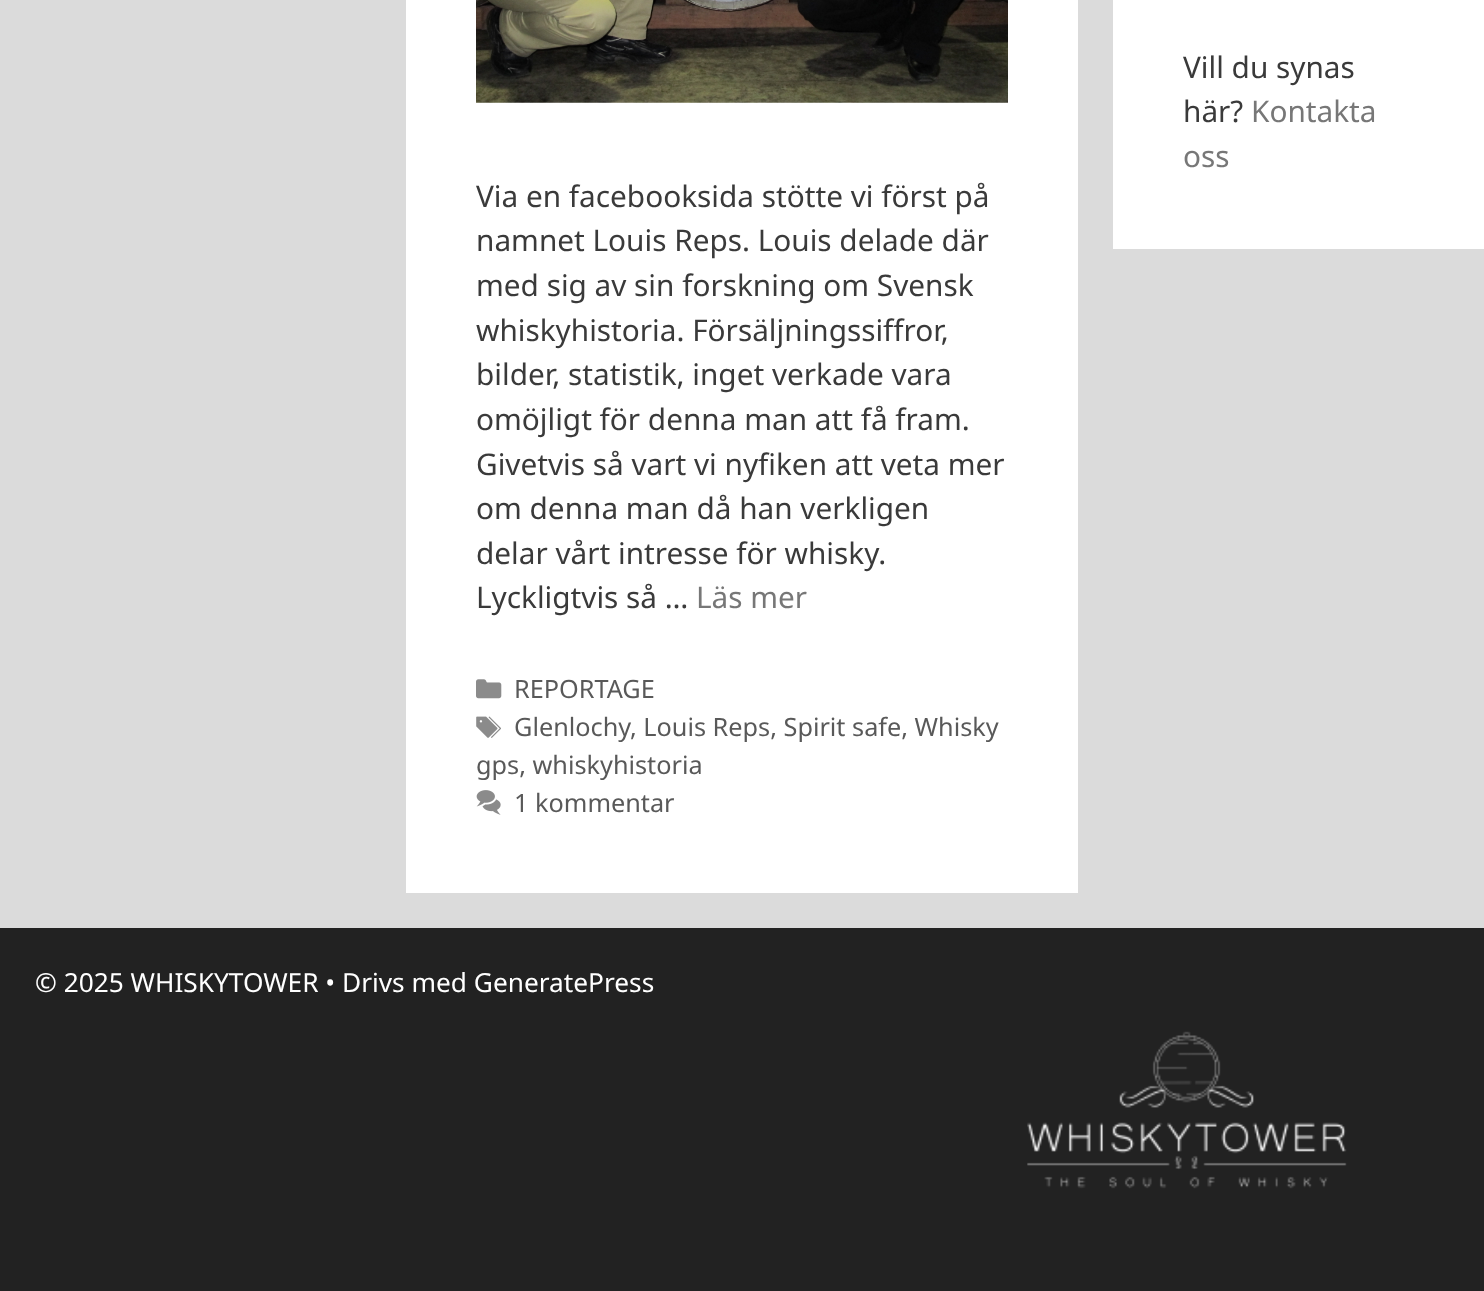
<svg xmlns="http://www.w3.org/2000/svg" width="1484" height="1291">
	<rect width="100%" height="100%" fill="#DBDBDB" />
	<rect x="1113" y="0" width="371" height="249" fill="#FFFFFF" />
	<g font-family="Noto Sans" font-size="29.75" fill="#3A3A3A">
		<text x="1183" y="78">Vill du synas</text>
		<text x="1183" y="122">här?</text>
	</g>
	<g font-family="Noto Sans" font-size="29.75" fill="#777777">
		<text x="1251" y="122">Kontakta</text>
		<text x="1183" y="167">oss</text>
	</g>
	<rect x="406" y="0" width="672" height="893" fill="#FFFFFF" />
	<image x="476" y="0" width="532" height="103" href="assets/img1.png" />
	<g font-family="Noto Sans" font-size="29.75" fill="#3A3A3A">
		<text x="476" y="207">Via en facebooksida stötte vi först på</text>
		<text x="476" y="251">namnet Louis Reps. Louis delade där</text>
		<text x="476" y="296">med sig av sin forskning om Svensk</text>
		<text x="476" y="341">whiskyhistoria. Försäljningssiffror,</text>
		<text x="476" y="385">bilder, statistik, inget verkade vara</text>
		<text x="476" y="430">omöjligt för denna man att få fram.</text>
		<text x="476" y="475">Givetvis så vart vi nyfiken att veta mer</text>
		<text x="476" y="519">om denna man då han verkligen</text>
		<text x="476" y="564">delar vårt intresse för whisky.</text>
		<text x="476" y="608">Lyckligtvis så …</text>
	</g>
	<text x="696" y="608" font-family="Noto Sans" font-size="29.75" fill="#777777">Läs mer</text>
	<image x="476" y="679" width="26" height="20" href="assets/img2.png" />
	<text x="514" y="698" font-family="Noto Sans" font-size="25.25" fill="#595959">REPORTAGE</text>
	<image x="476" y="716" width="25" height="22" href="assets/img3.png" />
	<g font-family="Noto Sans" font-size="25.25" fill="#595959">
		<text x="514" y="736">Glenlochy</text>
		<text x="630" y="736">, Louis Reps, Spirit safe, Whisky</text>
		<text x="476" y="774">gps, whiskyhistoria</text>
	</g>
	<image x="476" y="790" width="25" height="25" href="assets/img4.png" />
	<text x="514" y="812" font-family="Noto Sans" font-size="25.25" fill="#595959">1 kommentar</text>
	<rect x="0" y="928" width="1484" height="363" fill="#222222" />
	<text x="35" y="992" font-family="Noto Sans" font-size="26.25" fill="#FFFFFF">© 2025 WHISKYTOWER • Drivs med GeneratePress</text>
	<image x="1027" y="1031" width="320" height="158" href="assets/img5.png" />
</svg>
